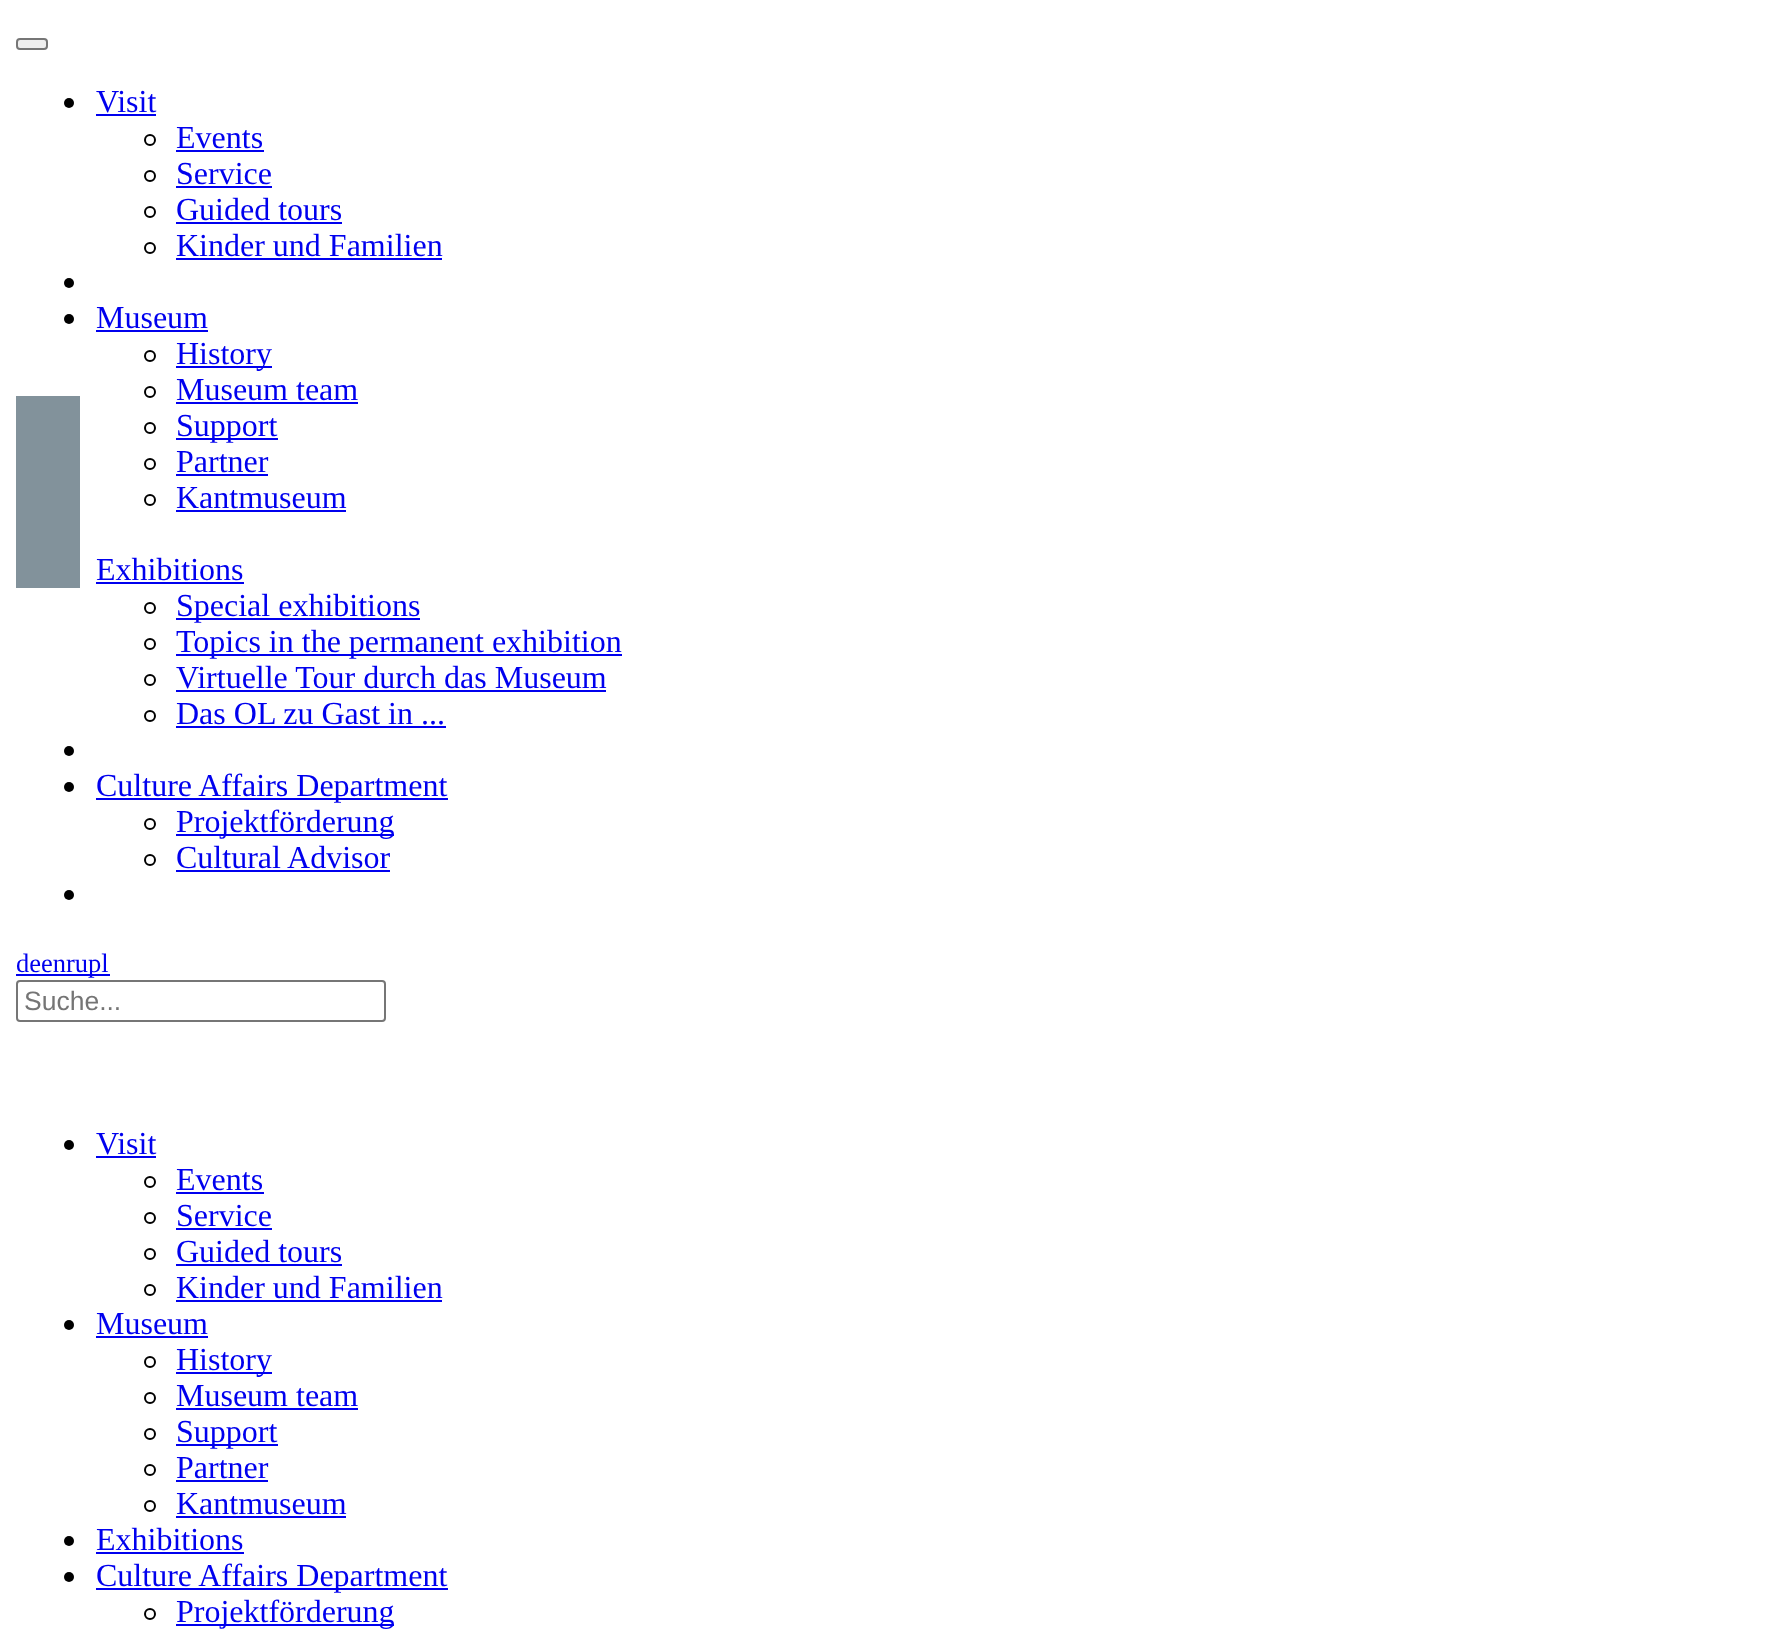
<svg xmlns="http://www.w3.org/2000/svg" width="1772" height="1639">
	<rect width="100%" height="100%" fill="#FFFFFF" />
	<rect x="17" y="39" width="30" height="10" rx="3" fill="#EFEFEF" stroke="#767676" stroke-width="2" />
	<circle cx="69" cy="103" r="5" fill="#000000" />
	<text x="96" y="112" font-family="Liberation Serif" font-size="32" fill="#0000EE">Visit</text>
	<rect x="96" y="114" width="60" height="2" fill="#0000EE" />
	<circle cx="150" cy="140" r="5" fill="none" stroke="#000000" stroke-width="2" />
	<text x="176" y="148" font-family="Liberation Serif" font-size="32" fill="#0000EE">Events</text>
	<rect x="176" y="150" width="88" height="2" fill="#0000EE" />
	<circle cx="150" cy="176" r="5" fill="none" stroke="#000000" stroke-width="2" />
	<text x="176" y="184" font-family="Liberation Serif" font-size="32" fill="#0000EE">Service</text>
	<rect x="176" y="186" width="96" height="2" fill="#0000EE" />
	<circle cx="150" cy="212" r="5" fill="none" stroke="#000000" stroke-width="2" />
	<text x="176" y="220" font-family="Liberation Serif" font-size="32" fill="#0000EE">Guided tours</text>
	<rect x="176" y="222" width="166" height="2" fill="#0000EE" />
	<circle cx="150" cy="248" r="5" fill="none" stroke="#000000" stroke-width="2" />
	<text x="176" y="256" font-family="Liberation Serif" font-size="32" fill="#0000EE">Kinder und Familien</text>
	<rect x="176" y="258" width="266" height="2" fill="#0000EE" />
	<circle cx="69" cy="283" r="5" fill="#000000" />
	<circle cx="69" cy="319" r="5" fill="#000000" />
	<text x="96" y="328" font-family="Liberation Serif" font-size="32" fill="#0000EE">Museum</text>
	<rect x="96" y="330" width="112" height="2" fill="#0000EE" />
	<circle cx="150" cy="356" r="5" fill="none" stroke="#000000" stroke-width="2" />
	<rect x="176" y="366" width="96" height="2" fill="#0000EE" />
	<text x="176" y="364" font-family="Liberation Serif" font-size="32" fill="#0000EE">History</text>
	<circle cx="150" cy="392" r="5" fill="none" stroke="#000000" stroke-width="2" />
	<text x="176" y="400" font-family="Liberation Serif" font-size="32" fill="#0000EE">Museum team</text>
	<rect x="176" y="402" width="182" height="2" fill="#0000EE" />
	<circle cx="150" cy="428" r="5" fill="none" stroke="#000000" stroke-width="2" />
	<rect x="176" y="438" width="102" height="2" fill="#0000EE" />
	<text x="176" y="436" font-family="Liberation Serif" font-size="32" fill="#0000EE">Support</text>
	<circle cx="150" cy="464" r="5" fill="none" stroke="#000000" stroke-width="2" />
	<text x="176" y="472" font-family="Liberation Serif" font-size="32" fill="#0000EE">Partner</text>
	<rect x="176" y="474" width="92" height="2" fill="#0000EE" />
	<circle cx="150" cy="500" r="5" fill="none" stroke="#000000" stroke-width="2" />
	<text x="176" y="508" font-family="Liberation Serif" font-size="32" fill="#0000EE">Kantmuseum</text>
	<rect x="176" y="510" width="170" height="2" fill="#0000EE" />
	<text x="96" y="580" font-family="Liberation Serif" font-size="32" fill="#0000EE">Exhibitions</text>
	<rect x="96" y="582" width="148" height="2" fill="#0000EE" />
	<circle cx="150" cy="608" r="5" fill="none" stroke="#000000" stroke-width="2" />
	<rect x="176" y="618" width="244" height="2" fill="#0000EE" />
	<text x="176" y="616" font-family="Liberation Serif" font-size="32" fill="#0000EE">Special exhibitions</text>
	<circle cx="150" cy="644" r="5" fill="none" stroke="#000000" stroke-width="2" />
	<rect x="176" y="654" width="446" height="2" fill="#0000EE" />
	<text x="176" y="652" font-family="Liberation Serif" font-size="32" fill="#0000EE">Topics in the permanent exhibition</text>
	<circle cx="150" cy="680" r="5" fill="none" stroke="#000000" stroke-width="2" />
	<text x="176" y="688" font-family="Liberation Serif" font-size="32" fill="#0000EE">Virtuelle Tour durch das Museum</text>
	<rect x="176" y="690" width="430" height="2" fill="#0000EE" />
	<circle cx="150" cy="716" r="5" fill="none" stroke="#000000" stroke-width="2" />
	<text x="176" y="724" font-family="Liberation Serif" font-size="32" fill="#0000EE">Das OL zu Gast in ...</text>
	<rect x="176" y="726" width="270" height="2" fill="#0000EE" />
	<circle cx="69" cy="751" r="5" fill="#000000" />
	<circle cx="69" cy="787" r="5" fill="#000000" />
	<rect x="96" y="798" width="352" height="2" fill="#0000EE" />
	<text x="96" y="796" font-family="Liberation Serif" font-size="32" fill="#0000EE">Culture Affairs Department</text>
	<circle cx="150" cy="824" r="5" fill="none" stroke="#000000" stroke-width="2" />
	<rect x="176" y="834" width="218" height="2" fill="#0000EE" />
	<text x="176" y="832" font-family="Liberation Serif" font-size="32" fill="#0000EE">Projektförderung</text>
	<circle cx="150" cy="860" r="5" fill="none" stroke="#000000" stroke-width="2" />
	<text x="176" y="868" font-family="Liberation Serif" font-size="32" fill="#0000EE">Cultural Advisor</text>
	<rect x="176" y="870" width="214" height="2" fill="#0000EE" />
	<circle cx="69" cy="895" r="5" fill="#000000" />
	<rect x="16" y="974" width="94" height="2" fill="#0000EE" />
	<text x="16" y="972" font-family="Liberation Serif" font-size="26.5" fill="#0000EE">deenrupl</text>
	<rect x="17" y="981" width="368" height="40" rx="3" fill="none" stroke="#767676" stroke-width="2" />
	<text x="24" y="1010" font-family="Liberation Sans" font-size="26.5" fill="#757575">Suche...</text>
	<rect x="16" y="396" width="64" height="192" fill="#82929B" />
	<circle cx="69" cy="1145" r="5" fill="#000000" />
	<text x="96" y="1154" font-family="Liberation Serif" font-size="32" fill="#0000EE">Visit</text>
	<rect x="96" y="1156" width="60" height="2" fill="#0000EE" />
	<circle cx="150" cy="1182" r="5" fill="none" stroke="#000000" stroke-width="2" />
	<text x="176" y="1190" font-family="Liberation Serif" font-size="32" fill="#0000EE">Events</text>
	<rect x="176" y="1192" width="88" height="2" fill="#0000EE" />
	<circle cx="150" cy="1218" r="5" fill="none" stroke="#000000" stroke-width="2" />
	<text x="176" y="1226" font-family="Liberation Serif" font-size="32" fill="#0000EE">Service</text>
	<rect x="176" y="1228" width="96" height="2" fill="#0000EE" />
	<circle cx="150" cy="1254" r="5" fill="none" stroke="#000000" stroke-width="2" />
	<text x="176" y="1262" font-family="Liberation Serif" font-size="32" fill="#0000EE">Guided tours</text>
	<rect x="176" y="1264" width="166" height="2" fill="#0000EE" />
	<circle cx="150" cy="1290" r="5" fill="none" stroke="#000000" stroke-width="2" />
	<text x="176" y="1298" font-family="Liberation Serif" font-size="32" fill="#0000EE">Kinder und Familien</text>
	<rect x="176" y="1300" width="266" height="2" fill="#0000EE" />
	<circle cx="69" cy="1325" r="5" fill="#000000" />
	<text x="96" y="1334" font-family="Liberation Serif" font-size="32" fill="#0000EE">Museum</text>
	<rect x="96" y="1336" width="112" height="2" fill="#0000EE" />
	<circle cx="150" cy="1362" r="5" fill="none" stroke="#000000" stroke-width="2" />
	<rect x="176" y="1372" width="96" height="2" fill="#0000EE" />
	<text x="176" y="1370" font-family="Liberation Serif" font-size="32" fill="#0000EE">History</text>
	<circle cx="150" cy="1398" r="5" fill="none" stroke="#000000" stroke-width="2" />
	<text x="176" y="1406" font-family="Liberation Serif" font-size="32" fill="#0000EE">Museum team</text>
	<rect x="176" y="1408" width="182" height="2" fill="#0000EE" />
	<circle cx="150" cy="1434" r="5" fill="none" stroke="#000000" stroke-width="2" />
	<rect x="176" y="1444" width="102" height="2" fill="#0000EE" />
	<text x="176" y="1442" font-family="Liberation Serif" font-size="32" fill="#0000EE">Support</text>
	<circle cx="150" cy="1470" r="5" fill="none" stroke="#000000" stroke-width="2" />
	<text x="176" y="1478" font-family="Liberation Serif" font-size="32" fill="#0000EE">Partner</text>
	<rect x="176" y="1480" width="92" height="2" fill="#0000EE" />
	<circle cx="150" cy="1506" r="5" fill="none" stroke="#000000" stroke-width="2" />
	<text x="176" y="1514" font-family="Liberation Serif" font-size="32" fill="#0000EE">Kantmuseum</text>
	<rect x="176" y="1516" width="170" height="2" fill="#0000EE" />
	<circle cx="69" cy="1541" r="5" fill="#000000" />
	<text x="96" y="1550" font-family="Liberation Serif" font-size="32" fill="#0000EE">Exhibitions</text>
	<rect x="96" y="1552" width="148" height="2" fill="#0000EE" />
	<circle cx="69" cy="1577" r="5" fill="#000000" />
	<rect x="96" y="1588" width="352" height="2" fill="#0000EE" />
	<text x="96" y="1586" font-family="Liberation Serif" font-size="32" fill="#0000EE">Culture Affairs Department</text>
	<circle cx="150" cy="1614" r="5" fill="none" stroke="#000000" stroke-width="2" />
	<rect x="176" y="1624" width="218" height="2" fill="#0000EE" />
	<text x="176" y="1622" font-family="Liberation Serif" font-size="32" fill="#0000EE">Projektförderung</text>
</svg>
